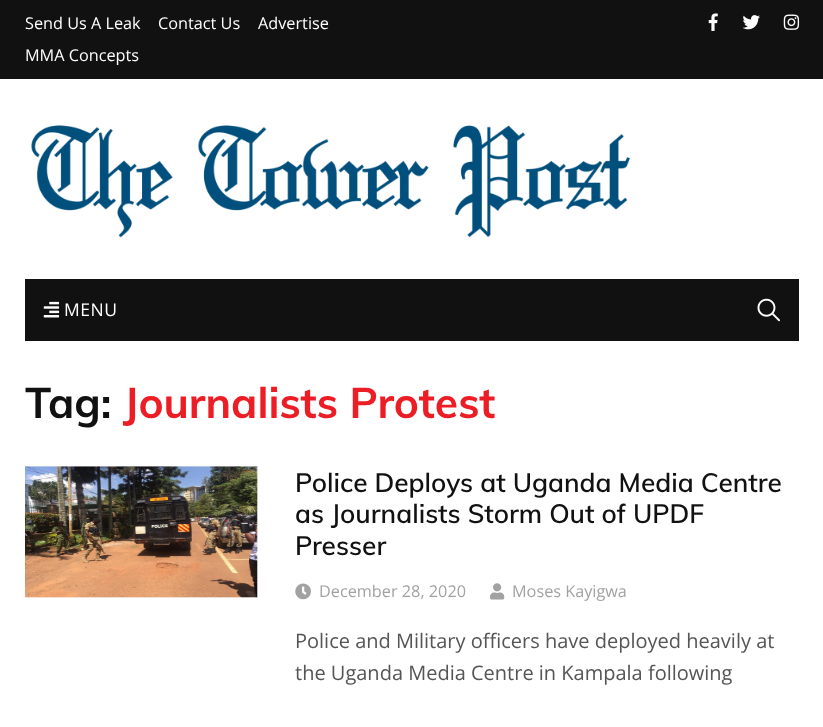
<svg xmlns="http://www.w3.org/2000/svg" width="823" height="727">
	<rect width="100%" height="100%" fill="#FFFFFF" />
	<rect x="0" y="0" width="823" height="79" fill="#111111" />
	<g font-family="Open Sans" font-size="16.25" fill="#FFFFFF">
		<text x="25" y="29">Send Us A Leak</text>
		<text x="158" y="29">Contact Us</text>
		<text x="258" y="29">Advertise</text>
		<text x="25" y="61">MMA Concepts</text>
	</g>
	<image x="708" y="13" width="10" height="18" href="assets/img1.png" />
	<image x="742" y="15" width="18" height="15" href="assets/img2.png" />
	<image x="783" y="14" width="17" height="16" href="assets/img3.png" />
	<image x="31" y="125" width="599" height="113" href="assets/img4.png" />
	<rect x="25" y="279" width="774" height="62" fill="#111111" />
	<image x="43" y="301" width="17" height="17" href="assets/img5.png" />
	<text x="64" y="316" font-family="Open Sans" font-size="17.5" letter-spacing="0.5" fill="#FFFFFF">MENU</text>
	<image x="757" y="298" width="23" height="24" href="assets/img6.png" />
	<text x="25" y="418" font-family="Muli" font-size="42.5" font-weight="700" fill="#111111">Tag:</text>
	<text x="123" y="418" font-family="Muli" font-size="42.5" font-weight="700" fill="#ED1D25">Journalists Protest</text>
	<rect x="25" y="466" width="233" height="132" fill="#F5F5F5" />
	<image x="25" y="466" width="233" height="132" href="assets/img7.png" />
	<g font-family="Muli" font-size="26.25" font-weight="600" fill="#111111">
		<text x="295" y="492">Police Deploys at Uganda Media Centre</text>
		<text x="295" y="523">as Journalists Storm Out of UPDF</text>
		<text x="295" y="555">Presser</text>
	</g>
	<image x="295" y="583" width="16" height="17" href="assets/img8.png" />
	<text x="319" y="597" font-family="Open Sans" font-size="16.25" fill="#A2A2A2">December 28, 2020</text>
	<image x="490" y="583" width="15" height="17" href="assets/img9.png" />
	<text x="512" y="597" font-family="Open Sans" font-size="16.25" fill="#A2A2A2">Moses Kayigwa</text>
	<g font-family="Open Sans" font-size="20" fill="#555555">
		<text x="295" y="648">Police and Military officers have deployed heavily at</text>
		<text x="295" y="680">the Uganda Media Centre in Kampala following</text>
	</g>
</svg>
